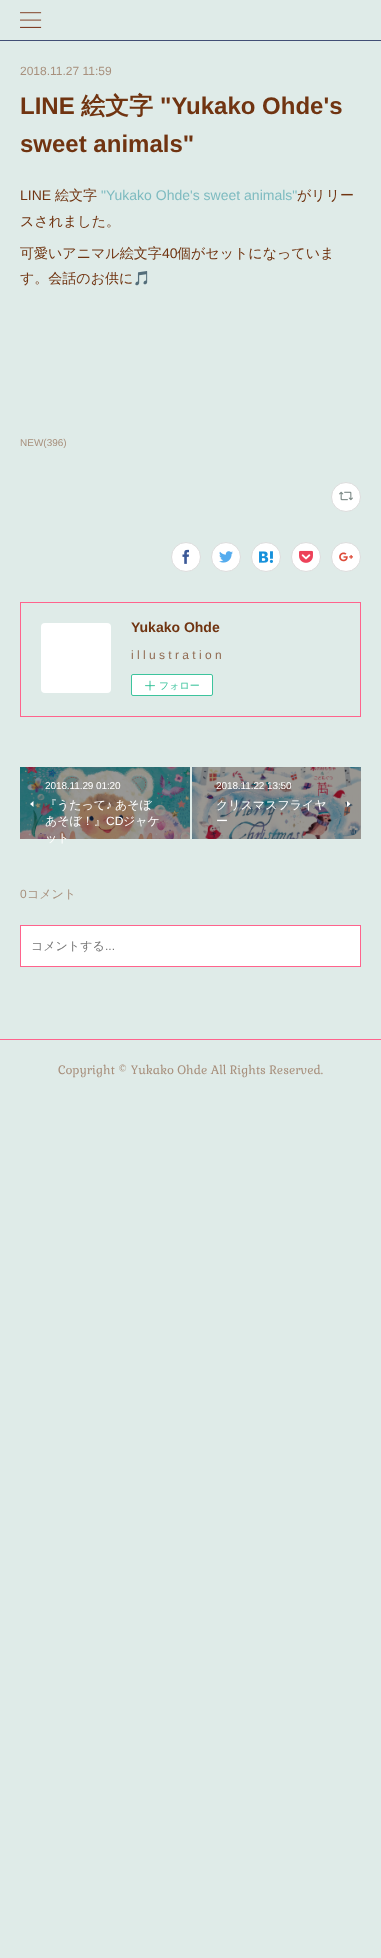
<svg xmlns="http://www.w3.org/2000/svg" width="381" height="1958">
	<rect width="100%" height="100%" fill="#DFEBE8" />
	<rect x="0" y="40" width="381" height="1" fill="#414E75" />
	<image x="20" y="12" width="22" height="16" href="assets/img1.png" />
	<text x="20" y="75" font-family="Liberation Sans" font-size="12" fill="#A8907D">2018.11.27 11:59</text>
	<text x="20" y="114" font-family="Liberation Sans" font-size="24" font-weight="700" fill="#703411">LINE</text>
	<text x="81" y="114" font-family="WenQuanYi Zen Hei" font-size="24" font-weight="700" fill="#703411">絵文字</text>
	<g font-family="Liberation Sans" font-size="24" font-weight="700" fill="#703411">
		<text x="160" y="114">"Yukako Ohde's</text>
		<text x="20" y="152">sweet animals"</text>
	</g>
	<text x="20" y="200" font-family="Liberation Sans" font-size="14" fill="#703411">LINE</text>
	<text x="55" y="200" font-family="WenQuanYi Zen Hei" font-size="14" font-weight="500" fill="#703411">絵文字</text>
	<text x="101" y="200" font-family="Liberation Sans" font-size="14" fill="#7EBBC0">"Yukako Ohde's sweet animals"</text>
	<g font-family="WenQuanYi Zen Hei" font-size="14" font-weight="500" fill="#703411">
		<text x="297" y="200">がリリー</text>
		<text x="20" y="226">スされました。</text>
		<text x="20" y="258">可愛いアニマル絵文字</text>
	</g>
	<text x="162" y="258" font-family="Liberation Sans" font-size="14" fill="#703411">40</text>
	<g font-family="WenQuanYi Zen Hei" font-size="14" font-weight="500" fill="#703411">
		<text x="177" y="258">個がセットになっていま</text>
		<text x="20" y="283">す。会話のお供に</text>
	</g>
	<text x="133" y="283" font-family="Noto Color Emoji" font-size="14" fill="#703411">🎵</text>
	<text x="20" y="446" font-family="Liberation Sans" font-size="10" fill="#A8907D">NEW(396)</text>
	<circle cx="346" cy="497" r="14.5" fill="#FFFFFF" stroke="#DDDDDD" />
	<image x="339" y="491" width="14" height="10" href="assets/img2.png" />
	<circle cx="186" cy="557" r="14.5" fill="#FFFFFF" stroke="#DDDDDD" />
	<image x="182" y="549" width="7" height="15" href="assets/img3.png" />
	<circle cx="226" cy="557" r="14.5" fill="#FFFFFF" stroke="#DDDDDD" />
	<image x="219" y="551" width="14" height="12" href="assets/img4.png" />
	<circle cx="266" cy="557" r="14.5" fill="#FFFFFF" stroke="#DDDDDD" />
	<image x="259" y="551" width="14" height="12" href="assets/img5.png" />
	<circle cx="306" cy="557" r="14.5" fill="#FFFFFF" stroke="#DDDDDD" />
	<image x="299" y="550" width="14" height="13" href="assets/img6.png" />
	<circle cx="346" cy="557" r="14.5" fill="#FFFFFF" stroke="#DDDDDD" />
	<image x="339" y="552" width="14" height="10" href="assets/img7.png" />
	<rect x="20.5" y="602.5" width="340" height="114" fill="none" stroke="#FF638D" />
	<rect x="41" y="623" width="70" height="70" rx="4" fill="#FFFFFF" />
	<text x="131" y="632" font-family="Liberation Sans" font-size="14" font-weight="700" fill="#703411">Yukako Ohde</text>
	<text x="131" y="659" font-family="Liberation Sans" font-size="12" fill="#916B52">i l l u s t r a t i o n</text>
	<rect x="131.5" y="674.5" width="81" height="21" rx="1.5" fill="#FFFFFF" stroke="#3DC49D" />
	<image x="145" y="680" width="10" height="11" href="assets/img8.png" />
	<text x="159" y="689" font-family="WenQuanYi Zen Hei" font-size="10" font-weight="500" fill="#3DC49D">フォロー</text>
	<image x="20" y="767" width="170" height="72" href="assets/img9.png" />
	<text x="45" y="789" font-family="Liberation Sans" font-size="10" letter-spacing="-0.1" fill="#FFFFFF">2018.11.29 01:20</text>
	<path d="M33.5 807V801L30 804Z" fill="#FFFFFF" />
	<text x="45" y="809" font-family="WenQuanYi Zen Hei" font-size="12" font-weight="500" fill="#FFFFFF">『うたって</text>
	<text x="106" y="809" font-family="Liberation Sans" font-size="12" fill="#FFFFFF">♪</text>
	<g font-family="WenQuanYi Zen Hei" font-size="12" font-weight="500" fill="#FFFFFF">
		<text x="115" y="809">あそぼ</text>
		<text x="45" y="825">あそぼ！』</text>
	</g>
	<text x="106" y="825" font-family="Liberation Sans" font-size="12" fill="#FFFFFF">CD</text>
	<g font-family="WenQuanYi Zen Hei" font-size="12" font-weight="500" fill="#FFFFFF">
		<text x="123" y="825">ジャケ</text>
		<text x="45" y="842">ット</text>
	</g>
	<image x="192" y="767" width="169" height="72" href="assets/img10.png" />
	<text x="216" y="789" font-family="Liberation Sans" font-size="10" letter-spacing="-0.1" fill="#FFFFFF">2018.11.22 13:50</text>
	<g font-family="WenQuanYi Zen Hei" font-size="12" font-weight="500" fill="#FFFFFF">
		<text x="216" y="809">クリスマスフライヤ</text>
		<text x="216" y="825">ー</text>
	</g>
	<path d="M347 801V807L350.5 804Z" fill="#FFFFFF" />
	<text x="20" y="898" font-family="Liberation Sans" font-size="12" fill="#A8907D">0</text>
	<text x="27" y="898" font-family="WenQuanYi Zen Hei" font-size="12" font-weight="500" fill="#A8907D">コメント</text>
	<rect x="20.5" y="925.5" width="340" height="41" fill="#FFFFFF" stroke="#FF638D" />
	<text x="31" y="950" font-family="WenQuanYi Zen Hei" font-size="12" font-weight="500" fill="#757575">コメントする</text>
	<text x="105" y="950" font-family="Liberation Sans" font-size="12" fill="#757575">...</text>
	<rect x="0" y="1039" width="381" height="1" fill="#FF638D" />
	<text x="58" y="1074" font-family="Gabriela" font-size="12" fill="#A8907D">Copyright © Yukako Ohde All Rights Reserved.</text>
</svg>
